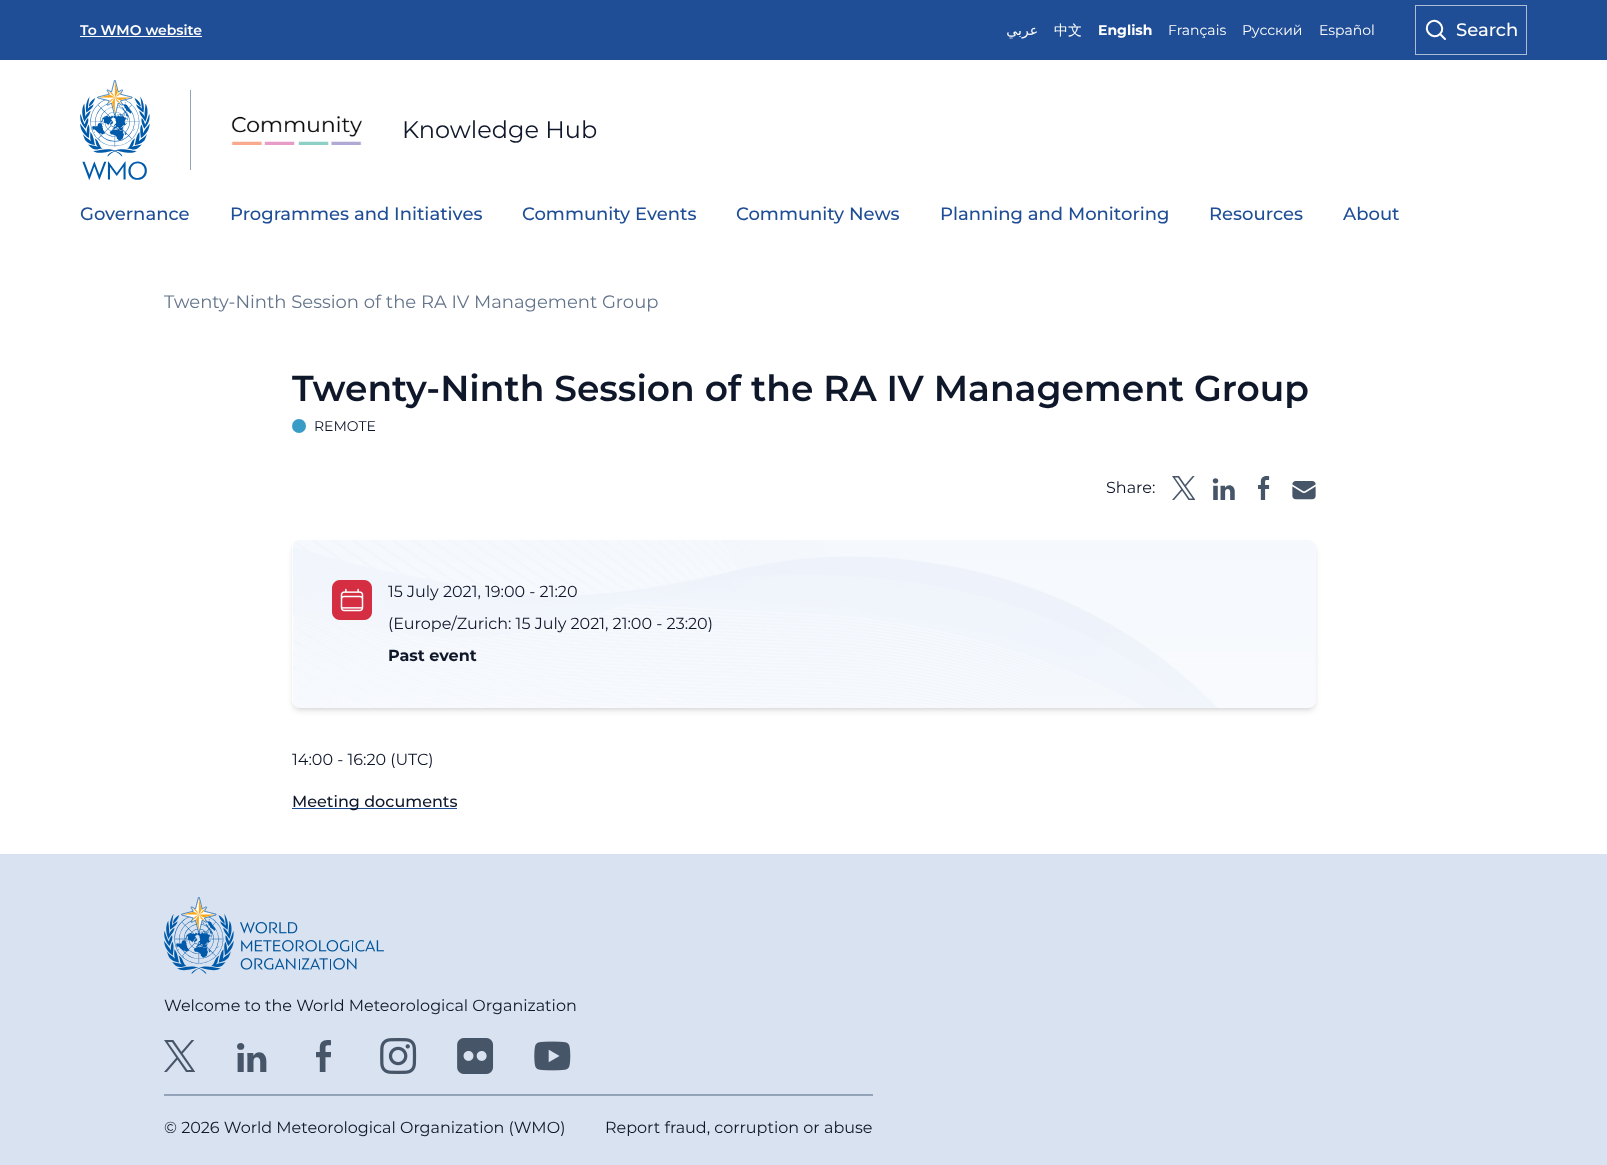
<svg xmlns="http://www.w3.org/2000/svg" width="1607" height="1165">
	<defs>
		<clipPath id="clip1"><path d="M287 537H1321V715H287ZM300 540H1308C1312.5 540 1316 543.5 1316 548V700C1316 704.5 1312.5 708 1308 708H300C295.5 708 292 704.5 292 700V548C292 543.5 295.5 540 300 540Z" clip-rule="evenodd" /></clipPath>
		<clipPath id="clip2"><path d="M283 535H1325V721H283ZM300 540H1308C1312.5 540 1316 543.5 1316 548V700C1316 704.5 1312.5 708 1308 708H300C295.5 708 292 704.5 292 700V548C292 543.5 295.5 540 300 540Z" clip-rule="evenodd" /></clipPath>
	</defs>
	<rect width="100%" height="100%" fill="#FFFFFF" />
	<rect x="0" y="0" width="1607" height="60" fill="#204E96" />
	<text x="80" y="35" font-family="Montserrat" font-size="14" font-weight="600" fill="#FFFFFF">To WMO website</text>
	<rect x="80" y="36" width="122" height="1" fill="#FFFFFF" />
	<text x="1038" y="35" font-family="DejaVu Sans" font-size="14" direction="rtl" fill="#FFFFFF">عربي</text>
	<text x="1054" y="35" font-family="WenQuanYi Zen Hei" font-size="14" font-weight="500" fill="#FFFFFF">中文</text>
	<text x="1098" y="35" font-family="Montserrat" font-size="14" font-weight="700" fill="#FFFFFF">English</text>
	<g font-family="Montserrat" font-size="14" fill="#FFFFFF">
		<text x="1168" y="35">Français</text>
		<text x="1242" y="35">Русский</text>
		<text x="1319" y="35">Español</text>
	</g>
	<rect x="1415.5" y="5.5" width="111" height="49" fill="none" stroke="#ADBCD5" />
	<path d="M1445 39L1440 34M1440 34C1447 27 1436 16 1429 23C1422 30 1433 41 1440 34Z" fill="none" stroke="#FFFFFF" stroke-width="2" stroke-linecap="round" stroke-linejoin="round" />
	<text x="1456" y="36" font-family="Montserrat" font-size="18" font-weight="500" fill="#FFFFFF">Search</text>
	<image x="80" y="80" width="70" height="100" href="assets/img1.png" />
	<rect x="190" y="90" width="1" height="80" fill="#94A3B8" />
	<image x="231" y="115" width="131" height="30" href="assets/img2.png" />
	<text x="402" y="138" font-family="Montserrat" font-size="24" fill="#0F172A">Knowledge Hub</text>
	<g font-family="Montserrat" font-size="18" font-weight="500" fill="#204E96">
		<text x="80" y="220">Governance</text>
		<text x="230" y="220">Programmes and Initiatives</text>
		<text x="522" y="220">Community Events</text>
		<text x="736" y="220">Community News</text>
		<text x="940" y="220">Planning and Monitoring</text>
		<text x="1209" y="220">Resources</text>
		<text x="1343" y="220">About</text>
	</g>
	<text x="164" y="308" font-family="Montserrat" font-size="18" fill="#64748B">Twenty-Ninth Session of the RA IV Management Group</text>
	<text x="292" y="401" font-family="Montserrat" font-size="36" font-weight="600" fill="#0F172A">Twenty-Ninth Session of the RA IV Management Group</text>
	<circle cx="299" cy="426" r="7" fill="#399CC7" />
	<text x="314" y="431" font-family="Montserrat" font-size="14" fill="#0F172A">REMOTE</text>
	<text x="1106" y="493" font-family="Montserrat" font-size="16" fill="#0F172A">Share:</text>
	<image x="1172" y="476" width="23" height="24" href="assets/img3.png" />
	<image x="1212" y="478" width="23" height="22" href="assets/img4.png" />
	<image x="1258" y="476" width="12" height="24" href="assets/img5.png" />
	<image x="1292" y="481" width="24" height="19" href="assets/img6.png" />
	<g clip-path="url(#clip1)">
		<rect x="294" y="544" width="1020" height="164" rx="6" fill="#000000" fill-opacity="0.1" filter="blur(2px)" />
	</g>
	<g clip-path="url(#clip2)">
		<rect x="293" y="545" width="1022" height="166" rx="7" fill="#000000" fill-opacity="0.1" filter="blur(3px)" />
	</g>
	<image x="292" y="540" width="1024" height="168" href="assets/img7.png" />
	<image x="332" y="580" width="40" height="40" href="assets/img8.png" />
	<g font-family="Montserrat" font-size="16" fill="#0F172A">
		<text x="388" y="597">15 July 2021, 19:00 - 21:20</text>
		<text x="388" y="629">(Europe/Zurich: 15 July 2021, 21:00 - 23:20)</text>
	</g>
	<text x="388" y="661" font-family="Montserrat" font-size="16" font-weight="700" fill="#0F172A">Past event</text>
	<text x="292" y="765" font-family="Montserrat" font-size="16" fill="#0F172A">14:00 - 16:20 (UTC)</text>
	<rect x="292" y="808" width="165" height="1" fill="#204E96" />
	<text x="292" y="807" font-family="Montserrat" font-size="16" font-weight="500" fill="#0F172A">Meeting documents</text>
	<rect x="0" y="854" width="1607" height="311" fill="#D9E2F0" />
	<rect x="164" y="1094" width="709" height="2" fill="#94A3B8" />
	<image x="164" y="897" width="70" height="77" href="assets/img9.png" />
	<image x="240" y="922" width="144" height="48" href="assets/img10.png" />
	<text x="164" y="1011" font-family="Montserrat" font-size="16" fill="#0F172A">Welcome to the World Meteorological Organization</text>
	<image x="164" y="1040" width="31" height="32" href="assets/img11.png" />
	<image x="237" y="1043" width="30" height="29" href="assets/img12.png" />
	<image x="316" y="1040" width="15" height="32" href="assets/img13.png" />
	<image x="380" y="1038" width="37" height="36" href="assets/img14.png" />
	<image x="457" y="1038" width="37" height="36" href="assets/img15.png" />
	<image x="534" y="1041" width="37" height="30" href="assets/img16.png" />
	<g font-family="Montserrat" font-size="16" fill="#0F172A">
		<text x="164" y="1133">© 2026 World Meteorological Organization (WMO)</text>
		<text x="605" y="1133">Report fraud, corruption or abuse</text>
	</g>
</svg>
